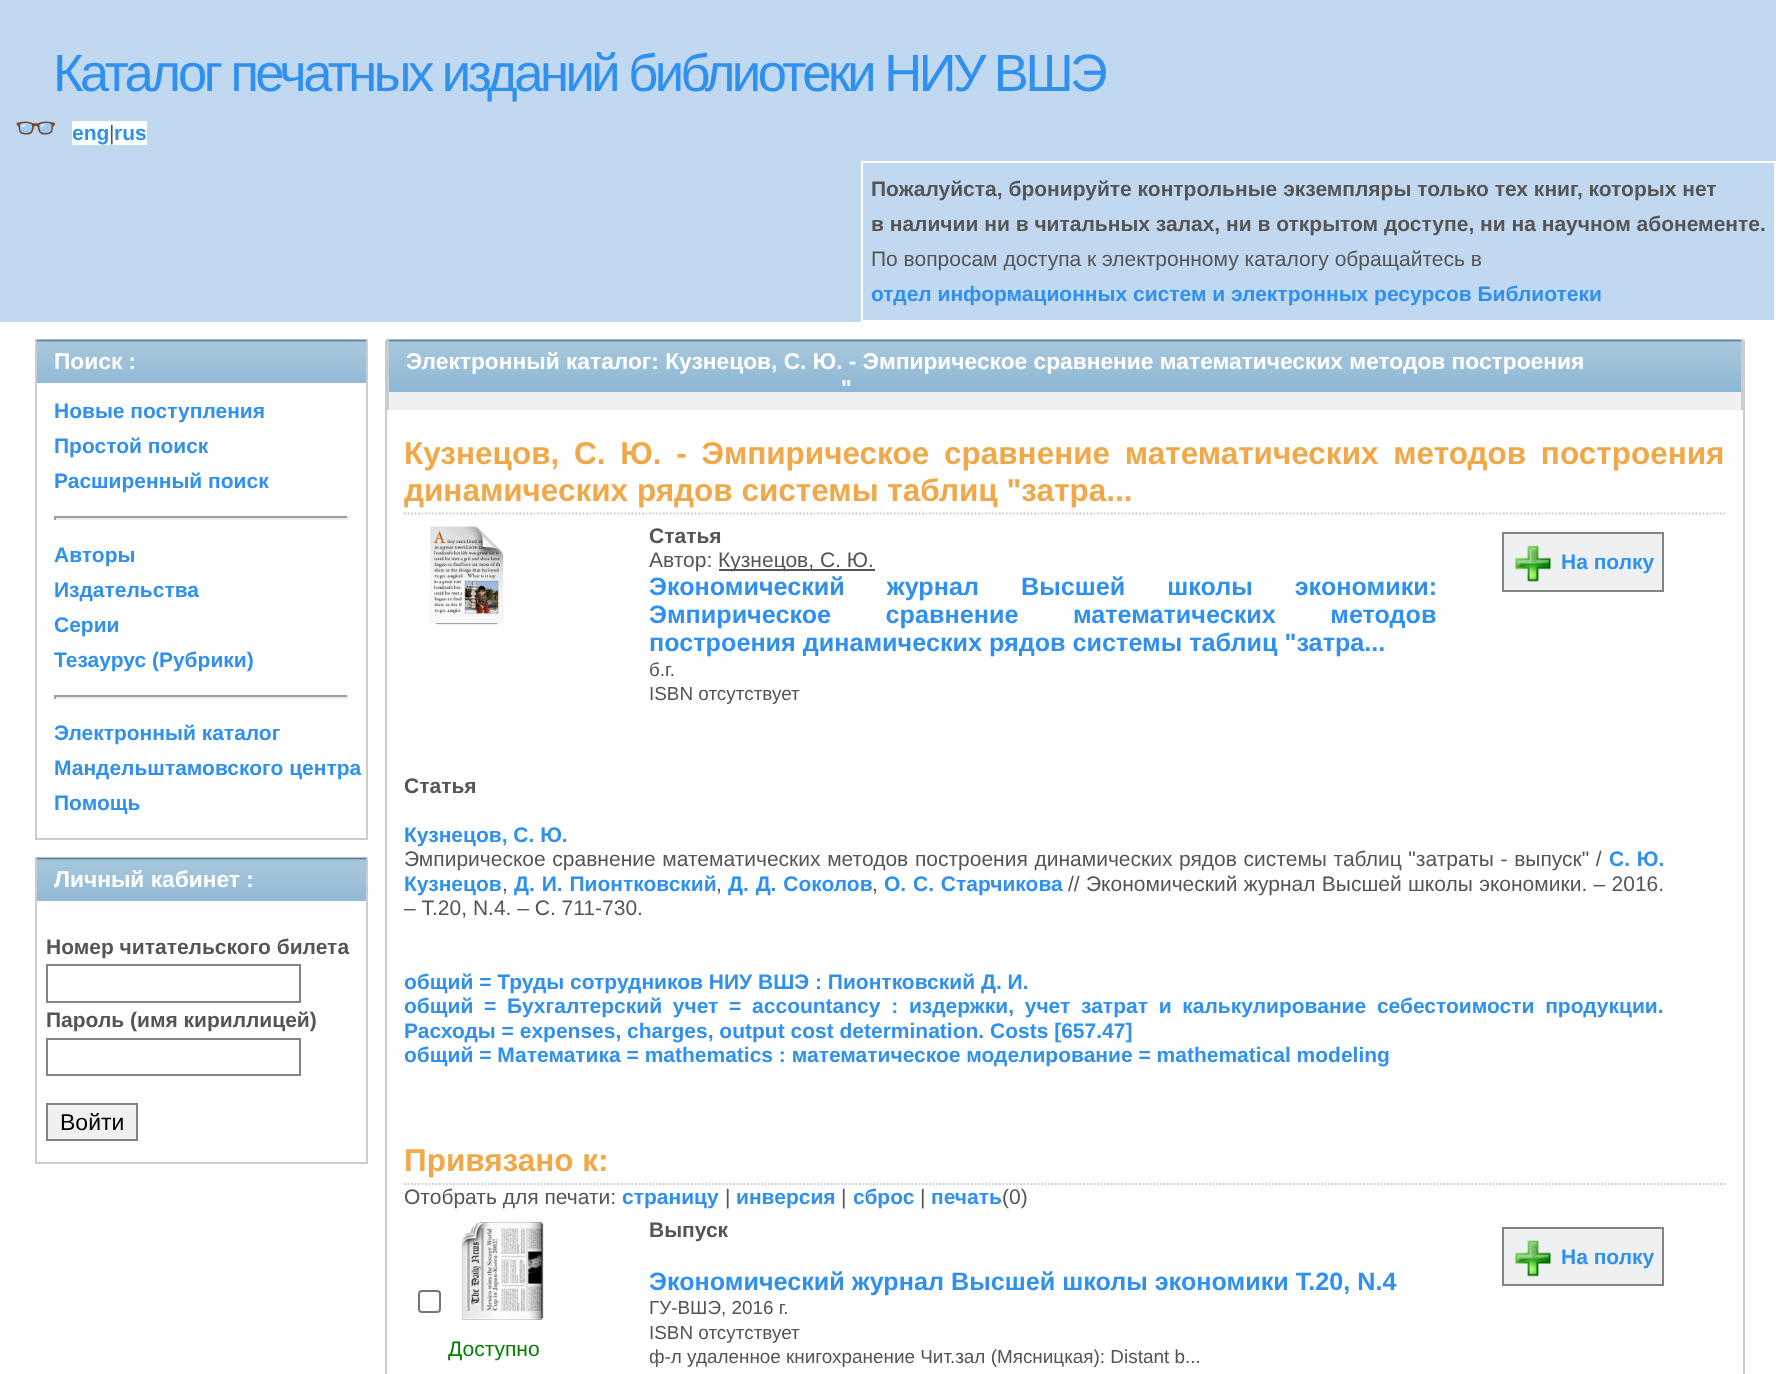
<svg xmlns="http://www.w3.org/2000/svg" width="1776" height="1374">
	<rect width="100%" height="100%" fill="#FFFFFF" />
	<rect x="0" y="0" width="1776" height="322" fill="#C0D8F0" />
	<text x="53" y="91" font-family="Liberation Sans" font-size="52.5" letter-spacing="-3.5" fill="#3090F0">Каталог печатных изданий библиотеки НИУ ВШЭ</text>
	<text x="14" y="140" font-family="Noto Color Emoji" font-size="35" font-weight="700" fill="#3090F0">👓</text>
	<rect x="72" y="121" width="75" height="24" fill="#FFFFFF" />
	<text x="72" y="140" font-family="Liberation Sans" font-size="21" font-weight="700" fill="#3090F0">eng</text>
	<text x="109" y="140" font-family="Liberation Sans" font-size="21" fill="#555555">|</text>
	<text x="114" y="140" font-family="Liberation Sans" font-size="21" font-weight="700" fill="#3090F0">rus</text>
	<rect x="862" y="162" width="913" height="159" fill="none" stroke="#FFFFFF" stroke-width="2" />
	<g font-family="Liberation Sans" font-size="21" font-weight="700" fill="#555555">
		<text x="871" y="196">Пожалуйста, бронируйте контрольные экземпляры только тех книг, которых нет</text>
		<text x="871" y="231">в наличии ни в читальных залах, ни в открытом доступе, ни на научном абонементе.</text>
	</g>
	<text x="871" y="266" font-family="Liberation Sans" font-size="21" fill="#555555">По вопросам доступа к электронному каталогу обращайтесь в</text>
	<text x="871" y="301" font-family="Liberation Sans" font-size="21" font-weight="700" fill="#3090F0">отдел информационных систем и электронных ресурсов Библиотеки</text>
	<image x="35" y="339" width="333" height="44" href="assets/img1.png" />
	<rect x="366" y="340" width="2" height="500" fill="#CCCCCC" />
	<rect x="35" y="340" width="2" height="43" fill="#CCCCCC" />
	<text x="54" y="369" font-family="Liberation Sans" font-size="22.75" font-weight="700" fill="#FFFFFF">Поиск :</text>
	<rect x="35" y="838" width="333" height="2" fill="#CCCCCC" />
	<rect x="35" y="383" width="2" height="457" fill="#CCCCCC" />
	<g font-family="Liberation Sans" font-size="21" font-weight="700" fill="#3090F0">
		<text x="54" y="418">Новые поступления</text>
		<text x="54" y="453">Простой поиск</text>
		<text x="54" y="488">Расширенный поиск</text>
	</g>
	<rect x="54" y="516" width="294" height="2" fill="#9F9F9F" />
	<rect x="347" y="516" width="2" height="4" fill="#EEEEEE" />
	<rect x="54" y="518" width="294" height="2" fill="#EEEEEE" />
	<rect x="54" y="516" width="2" height="4" fill="#9F9F9F" />
	<g font-family="Liberation Sans" font-size="21" font-weight="700" fill="#3090F0">
		<text x="54" y="562">Авторы</text>
		<text x="54" y="597">Издательства</text>
		<text x="54" y="632">Серии</text>
		<text x="54" y="667">Тезаурус (Рубрики)</text>
	</g>
	<rect x="54" y="695" width="294" height="2" fill="#9F9F9F" />
	<rect x="347" y="695" width="2" height="4" fill="#EEEEEE" />
	<rect x="54" y="697" width="294" height="2" fill="#EEEEEE" />
	<rect x="54" y="695" width="2" height="4" fill="#9F9F9F" />
	<g font-family="Liberation Sans" font-size="21" font-weight="700" fill="#3090F0">
		<text x="54" y="740">Электронный каталог</text>
		<text x="54" y="775">Мандельштамовского центра</text>
		<text x="54" y="810">Помощь</text>
	</g>
	<image x="35" y="857" width="333" height="44" href="assets/img1.png" />
	<rect x="366" y="858" width="2" height="306" fill="#CCCCCC" />
	<rect x="35" y="858" width="2" height="43" fill="#CCCCCC" />
	<text x="54" y="887" font-family="Liberation Sans" font-size="22.75" font-weight="700" fill="#FFFFFF">Личный кабинет :</text>
	<rect x="35" y="1162" width="333" height="2" fill="#CCCCCC" />
	<rect x="35" y="901" width="2" height="263" fill="#CCCCCC" />
	<text x="46" y="954" font-family="Liberation Sans" font-size="21" font-weight="700" fill="#555555">Номер читательского билета</text>
	<rect x="47" y="965" width="253" height="37" fill="none" stroke="#848388" stroke-width="2" />
	<text x="46" y="1027" font-family="Liberation Sans" font-size="21" font-weight="700" fill="#555555">Пароль (имя кириллицей)</text>
	<rect x="47" y="1039" width="253" height="36" fill="none" stroke="#848388" stroke-width="2" />
	<rect x="47" y="1104" width="90" height="36" fill="#EEF0F1" stroke="#848388" stroke-width="2" />
	<text x="60" y="1130" font-family="Liberation Sans" font-size="23" fill="#000000">Войти</text>
	<rect x="1743" y="340" width="2" height="1034" fill="#CCCCCC" />
	<rect x="385" y="340" width="2" height="1034" fill="#CCCCCC" />
	<rect x="389" y="392" width="1352" height="18" fill="#EEF0F1" />
	<image x="386" y="339" width="1357" height="53" href="assets/img2.png" />
	<rect x="1741" y="340" width="2" height="70" fill="#CCCCCC" />
	<rect x="387" y="340" width="2" height="70" fill="#CCCCCC" />
	<g font-family="Liberation Sans" font-size="22.75" font-weight="700" fill="#FFFFFF">
		<text x="406" y="369">Электронный каталог: Кузнецов, С. Ю. - Эмпирическое сравнение математических методов построения</text>
		<text x="841" y="396">"</text>
	</g>
	<path d="M404 513.5H1725.5" fill="none" stroke="#CCCCCC" stroke-width="1.8" stroke-dasharray="1.75 1.75" />
	<g font-family="Liberation Sans" font-size="31.5" font-weight="700" fill="#F0A848">
		<text x="404" y="464" word-spacing="6">Кузнецов, С. Ю. - Эмпирическое сравнение математических методов построения</text>
		<text x="404" y="501">динамических рядов системы таблиц "затра...</text>
	</g>
	<image x="430" y="526" width="74" height="99" href="assets/img3.png" />
	<text x="649" y="543" font-family="Liberation Sans" font-size="21" font-weight="700" fill="#555555">Статья</text>
	<text x="649" y="567" font-family="Liberation Sans" font-size="21" fill="#555555">Автор:</text>
	<rect x="719" y="569" width="156" height="2" fill="#555555" />
	<text x="718" y="567" font-family="Liberation Sans" font-size="21" fill="#555555">Кузнецов, С. Ю.</text>
	<g font-family="Liberation Sans" font-size="25.2" font-weight="700" fill="#3090F0">
		<text x="649" y="595" word-spacing="35">Экономический журнал Высшей школы экономики:</text>
		<text x="649" y="623" word-spacing="47.5">Эмпирическое сравнение математических методов</text>
		<text x="649" y="651">построения динамических рядов системы таблиц "затра...</text>
	</g>
	<g font-family="Liberation Sans" font-size="18.9" fill="#555555">
		<text x="649" y="676">б.г.</text>
		<text x="649" y="700">ISBN отсутствует</text>
	</g>
	<rect x="1503" y="533" width="160" height="58" fill="#EEF0F1" stroke="#848388" stroke-width="2" />
	<image x="1515" y="545" width="36" height="37" href="assets/img4.png" />
	<text x="1561" y="569" font-family="Liberation Sans" font-size="21" font-weight="700" fill="#3090F0">На полку</text>
	<text x="404" y="793" font-family="Liberation Sans" font-size="21" font-weight="700" fill="#555555">Статья</text>
	<text x="404" y="842" font-family="Liberation Sans" font-size="21" font-weight="700" fill="#3090F0">Кузнецов, С. Ю.</text>
	<text x="404" y="866" word-spacing="0.8" font-family="Liberation Sans" font-size="21" fill="#555555">Эмпирическое сравнение математических методов построения динамических рядов системы таблиц "затраты - выпуск" /</text>
	<g font-family="Liberation Sans" font-size="21" font-weight="700" fill="#3090F0">
		<text x="1609" y="866" word-spacing="1">С. Ю.</text>
		<text x="404" y="891">Кузнецов</text>
	</g>
	<text x="502" y="891" font-family="Liberation Sans" font-size="21" fill="#555555">,</text>
	<text x="514" y="891" word-spacing="1" font-family="Liberation Sans" font-size="21" font-weight="700" fill="#3090F0">Д. И. Пионтковский</text>
	<text x="716" y="891" font-family="Liberation Sans" font-size="21" fill="#555555">,</text>
	<text x="728" y="891" word-spacing="1" font-family="Liberation Sans" font-size="21" font-weight="700" fill="#3090F0">Д. Д. Соколов</text>
	<text x="872" y="891" font-family="Liberation Sans" font-size="21" fill="#555555">,</text>
	<text x="884" y="891" word-spacing="1" font-family="Liberation Sans" font-size="21" font-weight="700" fill="#3090F0">О. С. Старчикова</text>
	<g font-family="Liberation Sans" font-size="21" fill="#555555">
		<text x="1068" y="891">//</text>
		<text x="1086" y="891" word-spacing="0.5">Экономический журнал Высшей школы экономики. – 2016.</text>
		<text x="404" y="915">– Т.20, N.4. – С. 711-730.</text>
	</g>
	<g font-family="Liberation Sans" font-size="21" font-weight="700" fill="#3090F0">
		<text x="404" y="989">общий = Труды сотрудников НИУ ВШЭ : Пионтковский Д. И.</text>
		<text x="404" y="1013" word-spacing="4.9">общий = Бухгалтерский учет = accountancy : издержки, учет затрат и калькулирование себестоимости продукции.</text>
		<text x="404" y="1038">Расходы = expenses, charges, output cost determination. Costs [657.47]</text>
		<text x="404" y="1062">общий = Математика = mathematics : математическое моделирование = mathematical modeling</text>
	</g>
	<path d="M404 1184H1725.5" fill="none" stroke="#CCCCCC" stroke-width="1.8" stroke-dasharray="1.75 1.75" />
	<text x="404" y="1171" font-family="Liberation Sans" font-size="31.5" font-weight="700" fill="#F0A848">Привязано к:</text>
	<text x="404" y="1204" font-family="Liberation Sans" font-size="21" fill="#555555">Отобрать для печати:</text>
	<text x="622" y="1204" font-family="Liberation Sans" font-size="21" font-weight="700" fill="#3090F0">страницу</text>
	<text x="725" y="1204" font-family="Liberation Sans" font-size="21" fill="#555555">|</text>
	<text x="736" y="1204" font-family="Liberation Sans" font-size="21" font-weight="700" fill="#3090F0">инверсия</text>
	<text x="841" y="1204" font-family="Liberation Sans" font-size="21" fill="#555555">|</text>
	<text x="853" y="1204" font-family="Liberation Sans" font-size="21" font-weight="700" fill="#3090F0">сброс</text>
	<text x="920" y="1204" font-family="Liberation Sans" font-size="21" fill="#555555">|</text>
	<text x="931" y="1204" font-family="Liberation Sans" font-size="21" font-weight="700" fill="#3090F0">печать</text>
	<text x="1002" y="1204" font-family="Liberation Sans" font-size="21" fill="#555555">(0)</text>
	<text x="649" y="1237" font-family="Liberation Sans" font-size="21" font-weight="700" fill="#555555">Выпуск</text>
	<text x="649" y="1290" font-family="Liberation Sans" font-size="25.2" font-weight="700" fill="#3090F0">Экономический журнал Высшей школы экономики Т.20, N.4</text>
	<g font-family="Liberation Sans" font-size="18.9" fill="#555555">
		<text x="649" y="1314">ГУ-ВШЭ, 2016 г.</text>
		<text x="649" y="1339">ISBN отсутствует</text>
		<text x="649" y="1363">ф-л удаленное книгохранение Чит.зал (Мясницкая): Distant b...</text>
	</g>
	<rect x="1503" y="1228" width="160" height="57" fill="#EEF0F1" stroke="#848388" stroke-width="2" />
	<image x="1515" y="1240" width="36" height="37" href="assets/img5.png" />
	<text x="1561" y="1264" font-family="Liberation Sans" font-size="21" font-weight="700" fill="#3090F0">На полку</text>
	<rect x="419" y="1291" width="21" height="21" rx="3" fill="none" stroke="#767676" stroke-width="2" />
	<image x="462" y="1222" width="82" height="98" href="assets/img6.png" />
	<text x="448" y="1356" font-family="Liberation Sans" font-size="21" fill="#008000">Доступно</text>
</svg>
